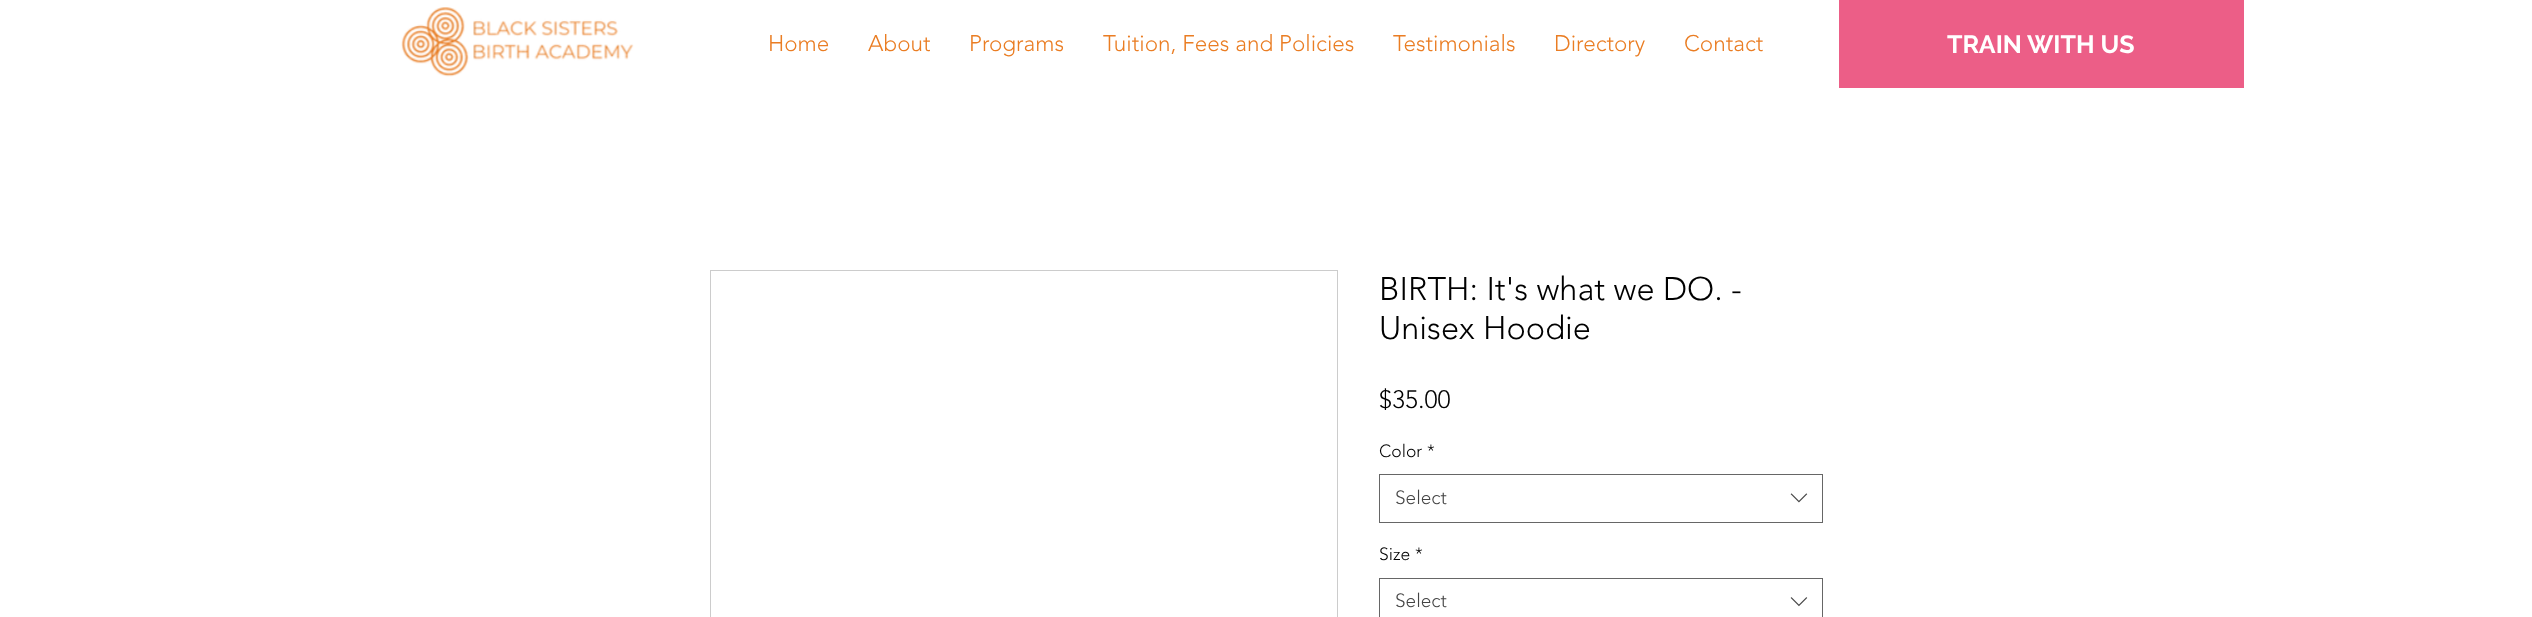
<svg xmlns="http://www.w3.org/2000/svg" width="2532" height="617">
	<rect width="100%" height="100%" fill="#FFFFFF" />
	<image x="401" y="7" width="233" height="70" href="assets/img1.png" />
	<g font-family="'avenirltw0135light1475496'" font-size="22.5" font-weight="300" fill="#EA7D23">
		<text x="768" y="51">Home</text>
		<text x="868" y="51">About</text>
		<text x="969" y="51">Programs</text>
		<text x="1103" y="51">Tuition, Fees and Policies</text>
		<text x="1393" y="51">Testimonials</text>
		<text x="1554" y="51">Directory</text>
		<text x="1684" y="51">Contact</text>
	</g>
	<rect x="1839" y="0" width="405" height="88" fill="#EC5E87" />
	<text x="1947" y="53" font-family="Raleway" font-size="25" font-weight="700" fill="#FFFFFF">TRAIN WITH US</text>
	<rect x="710.5" y="270.5" width="627" height="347" fill="none" stroke="#CCCCCC" />
	<g font-family="'avenirltw0135light1475496'" font-size="32.5" font-weight="300" fill="#000000">
		<text x="1379" y="300">BIRTH: It's what we DO. -</text>
		<text x="1379" y="339">Unisex Hoodie</text>
	</g>
	<text x="1379" y="408" font-family="'avenirltw0135light1475496'" font-size="25" font-weight="300" fill="#000000">$35.00</text>
	<g font-family="'avenirltw0135light1475496'" font-size="17.5" font-weight="300" fill="#000000">
		<text x="1379" y="457">Color</text>
		<text x="1427" y="457">*</text>
	</g>
	<rect x="1379.5" y="474.5" width="443" height="48" fill="none" stroke="#666666" />
	<text x="1395" y="504" font-family="'avenirltw0135light1475496'" font-size="19" font-weight="300" fill="#444444">Select</text>
	<image x="1790" y="493" width="18" height="10" href="assets/img2.png" />
	<g font-family="'avenirltw0135light1475496'" font-size="17.5" font-weight="300" fill="#000000">
		<text x="1379" y="560">Size</text>
		<text x="1415" y="560">*</text>
	</g>
	<rect x="1379.5" y="578.5" width="443" height="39" fill="none" stroke="#666666" />
	<text x="1395" y="607" font-family="'avenirltw0135light1475496'" font-size="19" font-weight="300" fill="#444444">Select</text>
	<image x="1790" y="597" width="18" height="10" href="assets/img3.png" />
</svg>
